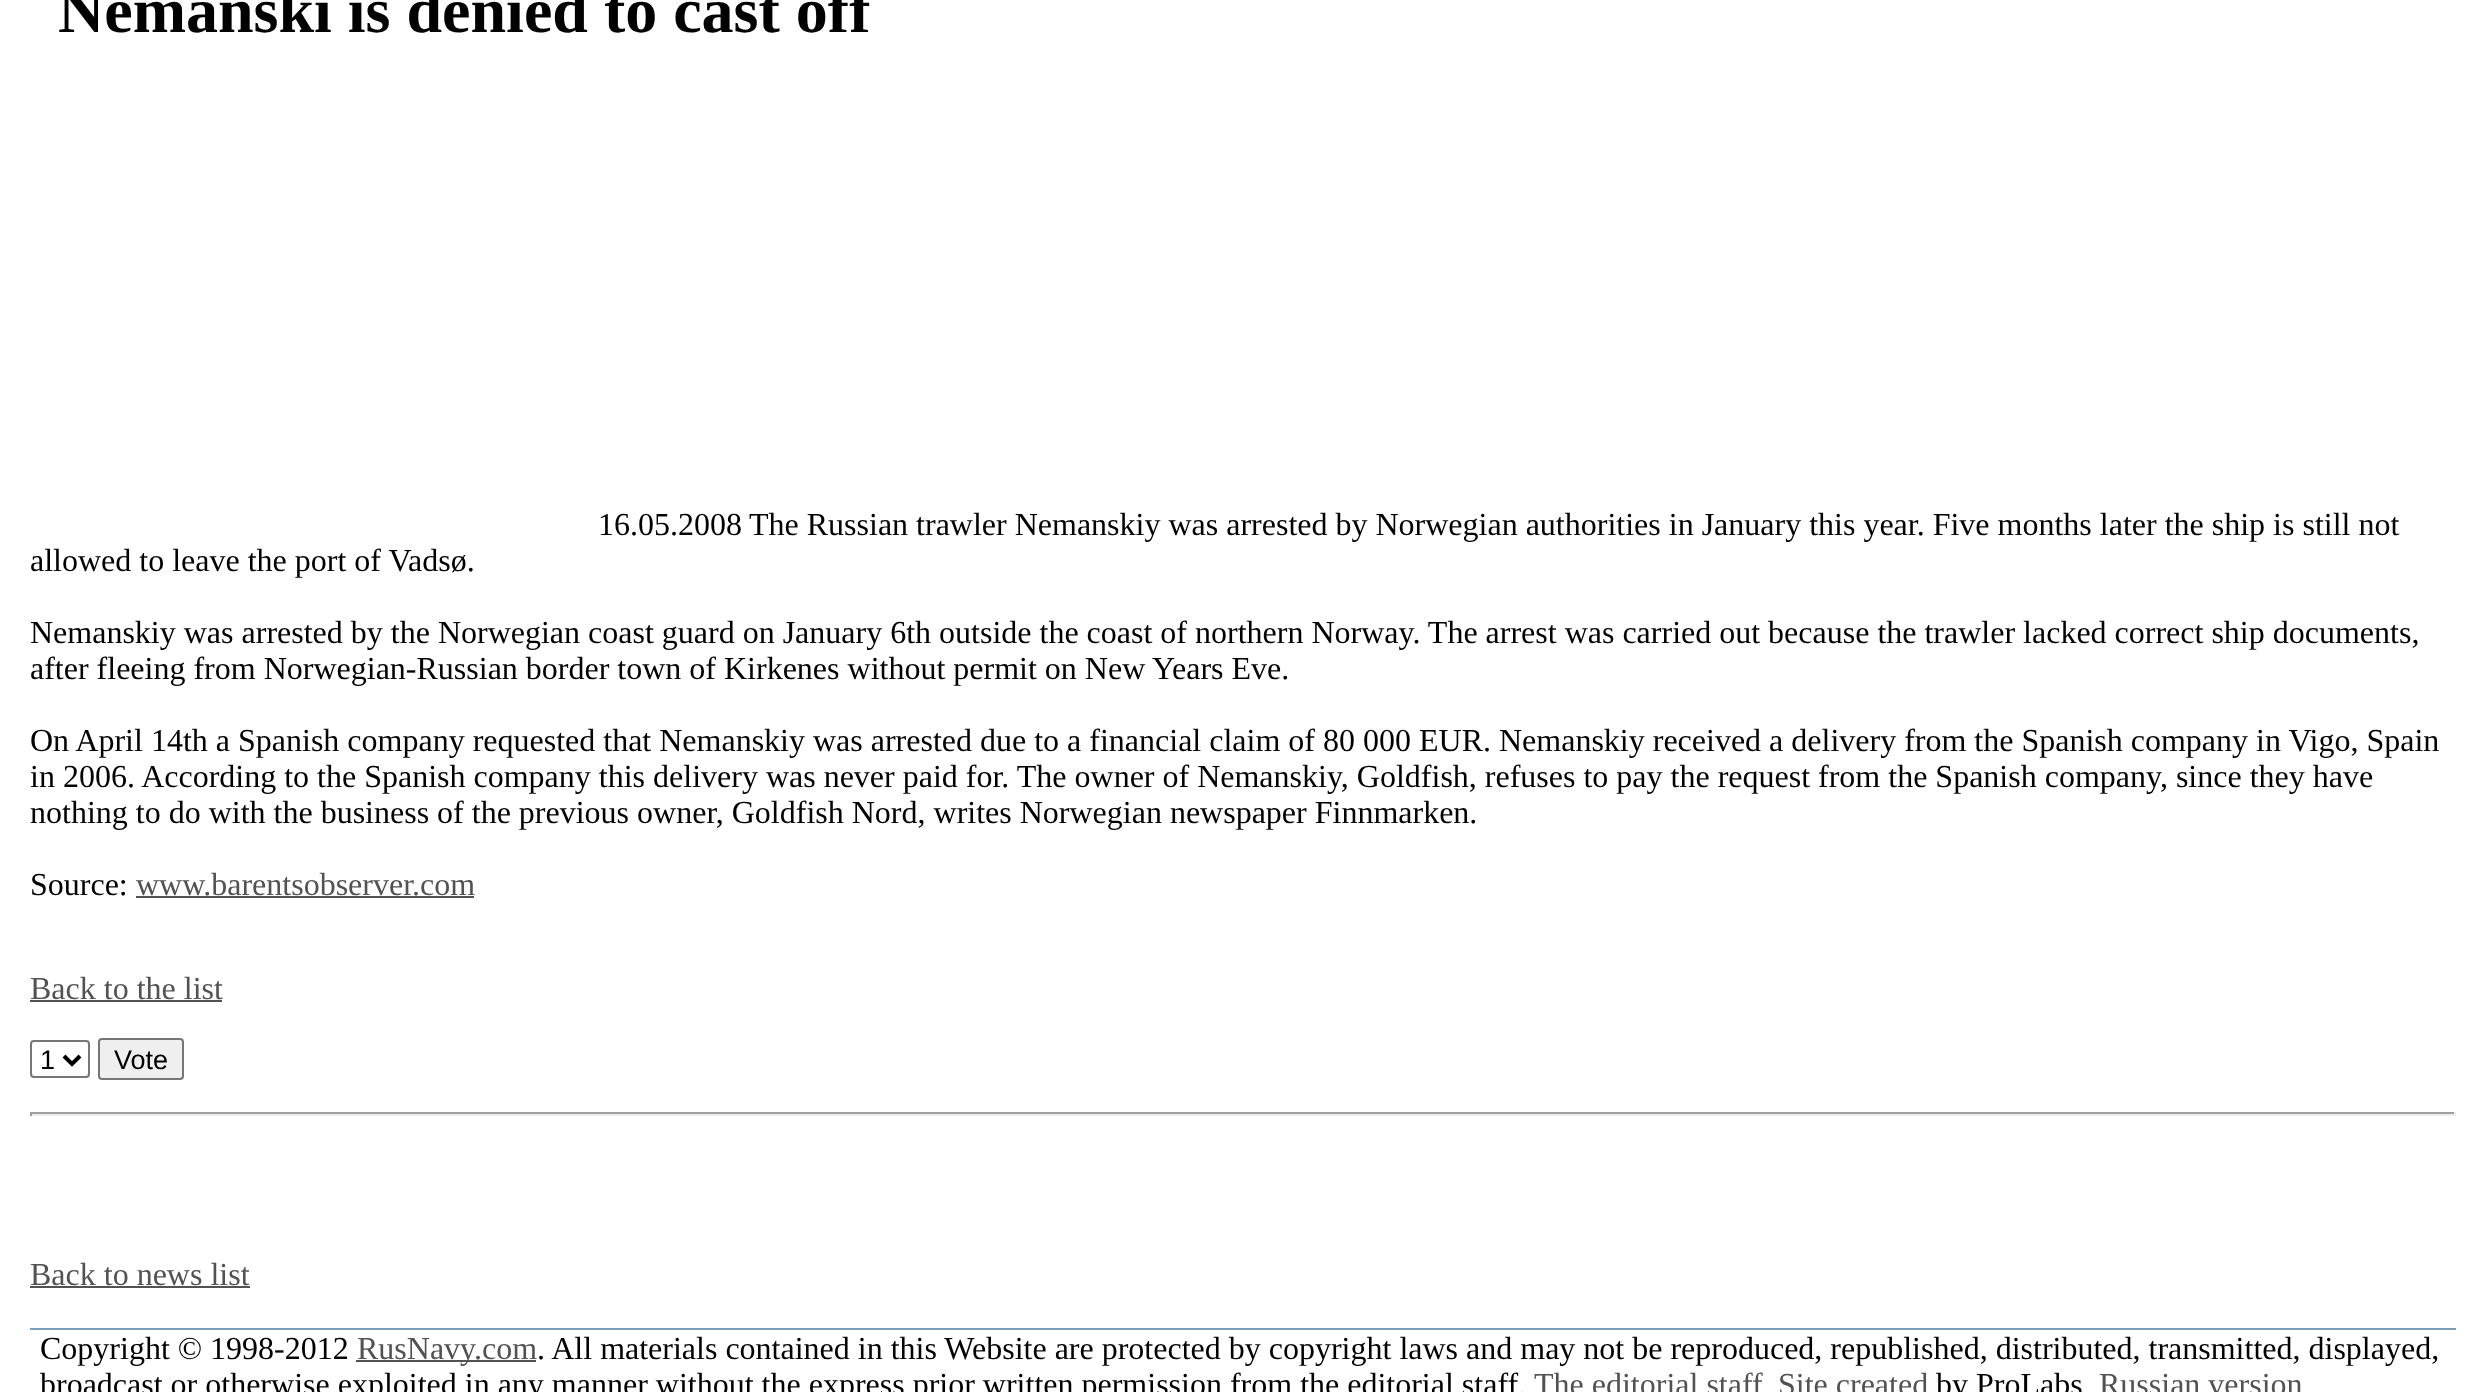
<svg xmlns="http://www.w3.org/2000/svg" width="2486" height="1392">
	<rect width="100%" height="100%" fill="#FFFFFF" />
	<text x="58" y="32" font-family="Liberation Serif" font-size="64" font-weight="700" fill="#000000">Nemanski is denied to cast off</text>
	<g font-family="Liberation Serif" font-size="32" fill="#000000">
		<text x="598" y="535">16.05.2008</text>
		<text x="749" y="535">The Russian trawler Nemanskiy was arrested by Norwegian authorities in January this year. Five months later the ship is still not</text>
		<text x="30" y="571">allowed to leave the port of Vadsø.</text>
		<text x="30" y="643">Nemanskiy was arrested by the Norwegian coast guard on January 6th outside the coast of northern Norway. The arrest was carried out because the trawler lacked correct ship documents,</text>
		<text x="30" y="679">after fleeing from Norwegian-Russian border town of Kirkenes without permit on New Years Eve.</text>
		<text x="30" y="751">On April 14th a Spanish company requested that Nemanskiy was arrested due to a financial claim of 80 000 EUR. Nemanskiy received a delivery from the Spanish company in Vigo, Spain</text>
		<text x="30" y="787">in 2006. According to the Spanish company this delivery was never paid for. The owner of Nemanskiy, Goldfish, refuses to pay the request from the Spanish company, since they have</text>
		<text x="30" y="823">nothing to do with the business of the previous owner, Goldfish Nord, writes Norwegian newspaper Finnmarken.</text>
		<text x="30" y="895">Source:</text>
	</g>
	<text x="136" y="895" font-family="Liberation Serif" font-size="32" fill="#525252">www.barentsobserver.com</text>
	<rect x="136" y="896" width="338" height="2" fill="#525252" />
	<text x="30" y="999" font-family="Liberation Serif" font-size="32" fill="#525252">Back to the list</text>
	<rect x="30" y="1000" width="192" height="2" fill="#525252" />
	<rect x="31" y="1041" width="58" height="36" rx="3" fill="none" stroke="#767676" stroke-width="2" />
	<path d="M64 1056L72 1064L80 1056" fill="none" stroke="#000000" stroke-width="4" />
	<text x="40" y="1069" font-family="Liberation Sans" font-size="27" fill="#000000">1</text>
	<rect x="99" y="1039" width="84" height="40" rx="3" fill="#EFEFEF" stroke="#767676" stroke-width="2" />
	<text x="114" y="1069" font-family="Liberation Sans" font-size="27" fill="#000000">Vote</text>
	<rect x="30" y="1112" width="2426" height="2" fill="#9F9F9F" />
	<rect x="2454" y="1112" width="2" height="4" fill="#EEEEEE" />
	<rect x="30" y="1114" width="2426" height="2" fill="#EEEEEE" />
	<rect x="30" y="1112" width="2" height="4" fill="#9F9F9F" />
	<text x="30" y="1285" font-family="Liberation Serif" font-size="32" fill="#525252">Back to news list</text>
	<rect x="30" y="1286" width="220" height="2" fill="#525252" />
	<rect x="30" y="1328" width="2426" height="2" fill="#7B9DBB" />
	<text x="40" y="1359" font-family="Liberation Serif" font-size="32" fill="#000000">Copyright © 1998-2012</text>
	<rect x="356" y="1360" width="180" height="2" fill="#525252" />
	<text x="357" y="1359" font-family="Liberation Serif" font-size="32" fill="#525252">RusNavy.com</text>
	<g font-family="Liberation Serif" font-size="32" fill="#000000">
		<text x="537" y="1359">. All materials contained in this Website are protected by copyright laws and may not be reproduced, republished, distributed, transmitted, displayed,</text>
		<text x="40" y="1395">broadcast or otherwise exploited in any manner without the express prior written permission from the editorial staff.</text>
	</g>
	<g font-family="Liberation Serif" font-size="32" fill="#525252">
		<text x="1534" y="1395">The editorial staff</text>
		<text x="1778" y="1395">Site created</text>
	</g>
	<text x="1936" y="1395" font-family="Liberation Serif" font-size="32" fill="#000000">by ProLabs</text>
	<text x="2099" y="1395" font-family="Liberation Serif" font-size="32" fill="#525252">Russian version</text>
</svg>
